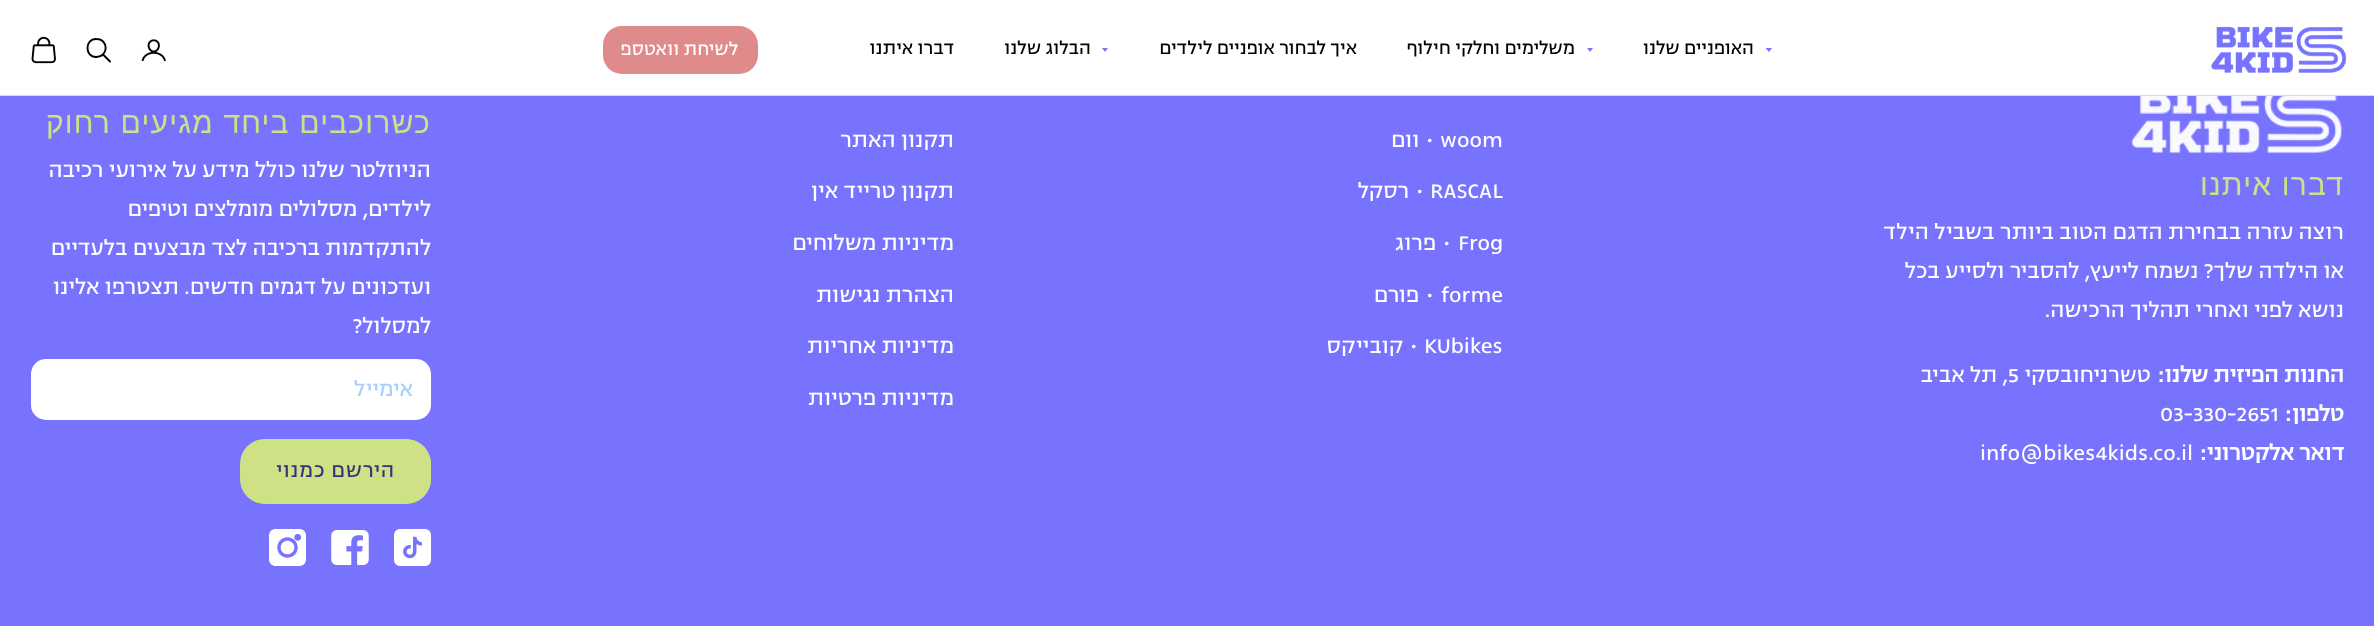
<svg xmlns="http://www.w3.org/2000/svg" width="2374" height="626">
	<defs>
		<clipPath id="clip1"><rect x="240" y="439" width="191" height="65" rx="25" /></clipPath>
	</defs>
	<rect width="100%" height="100%" fill="#7773FF" />
	<rect x="0" y="0" width="2374" height="95" fill="#FFFFFF" />
	<rect x="0" y="95" width="2374" height="1" fill="#D9D9D9" />
	<image x="2211" y="26" width="136" height="47" href="assets/img1.png" />
	<path d="M1769 52L1772 48H1765.5Z" fill="#7773FF" />
	<text x="1754" y="54" font-family="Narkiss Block" font-size="20" direction="rtl" fill="#000000">האופניים שלנו</text>
	<path d="M1590 52L1593 48H1587Z" fill="#7773FF" />
	<g font-family="Narkiss Block" font-size="20" direction="rtl" fill="#000000">
		<text x="1575" y="54">משלימים וחלקי חילוף</text>
		<text x="1357" y="54">איך לבחור אופניים לילדים</text>
	</g>
	<path d="M1105 52L1108 48H1102Z" fill="#7773FF" />
	<g font-family="Narkiss Block" font-size="20" direction="rtl" fill="#000000">
		<text x="1091" y="54">הבלוג שלנו</text>
		<text x="954" y="54">דברו איתנו</text>
	</g>
	<rect x="603" y="26" width="155" height="48" rx="19" fill="#DF8B8C" />
	<text x="738" y="55" font-family="Narkiss Block" font-size="20" direction="rtl" fill="#FFFFFF">לשיחת וואטספ</text>
	<image x="141" y="39" width="25" height="23" href="assets/img2.png" />
	<path d="M96.5 39C84.5 38.5 84.5 57.5 96.5 57C109 56.5 108.5 39 96.5 39Z" fill="none" stroke="#000000" stroke-width="1.9" />
	<path d="M103.5 55L110 61.5" fill="none" stroke="#000000" stroke-width="1.9" stroke-linecap="round" />
	<image x="31" y="36" width="25" height="28" href="assets/img3.png" />
	<image x="2131" y="96" width="211" height="58" href="assets/img4.png" />
	<text x="2344" y="195" font-family="Liberation Sans" font-size="30" letter-spacing="1.2" direction="rtl" fill="#CEE185">דברו איתנו</text>
	<g font-family="Narkiss Block" font-size="23.75" direction="rtl" fill="#FFFFFF">
		<text x="2344" y="239">רוצה עזרה בבחירת הדגם הטוב ביותר בשביל הילד</text>
		<text x="2344" y="278">או הילדה שלך? נשמח לייעץ, להסביר ולסייע בכל</text>
		<text x="2344" y="317">נושא לפני ואחרי תהליך הרכישה.</text>
	</g>
	<text x="2344" y="382" font-family="Narkiss Block" font-size="23.75" font-weight="700" direction="rtl" fill="#FFFFFF">החנות הפיזית שלנו:</text>
	<text x="2151" y="382" font-family="Narkiss Block" font-size="23.75" direction="rtl" fill="#FFFFFF">טשרניחובסקי</text>
	<text x="2008" y="382" font-family="Narkiss Block" font-size="23.75" fill="#FFFFFF">5</text>
	<text x="2008" y="382" font-family="Narkiss Block" font-size="23.75" direction="rtl" fill="#FFFFFF">, תל אביב</text>
	<text x="2344" y="421" font-family="Narkiss Block" font-size="23.75" font-weight="700" direction="rtl" fill="#FFFFFF">טלפון:</text>
	<text x="2160" y="421" font-family="Narkiss Block" font-size="23.75" fill="#FFFFFF">03-330-2651</text>
	<text x="2344" y="460" font-family="Narkiss Block" font-size="23.75" font-weight="700" direction="rtl" fill="#FFFFFF">דואר אלקטרוני:</text>
	<g font-family="Narkiss Block" font-size="23.75" fill="#FFFFFF">
		<text x="1980" y="460">info@bikes4kids.co.il</text>
		<text x="1440" y="147">woom</text>
	</g>
	<text x="1435" y="147" font-family="Narkiss Block" font-size="23.75" direction="rtl" fill="#FFFFFF">• וום</text>
	<text x="1430" y="198" font-family="Narkiss Block" font-size="23.75" fill="#FFFFFF">RASCAL</text>
	<text x="1425" y="198" font-family="Narkiss Block" font-size="23.75" direction="rtl" fill="#FFFFFF">• רסקל</text>
	<text x="1458" y="250" font-family="Narkiss Block" font-size="23.75" fill="#FFFFFF">Frog</text>
	<text x="1452" y="250" font-family="Narkiss Block" font-size="23.75" direction="rtl" fill="#FFFFFF">• פרוג</text>
	<text x="1441" y="302" font-family="Narkiss Block" font-size="23.75" fill="#FFFFFF">forme</text>
	<text x="1435" y="302" font-family="Narkiss Block" font-size="23.75" direction="rtl" fill="#FFFFFF">• פורם</text>
	<text x="1424" y="353" font-family="Narkiss Block" font-size="23.75" fill="#FFFFFF">KUbikes</text>
	<g font-family="Narkiss Block" font-size="23.75" direction="rtl" fill="#FFFFFF">
		<text x="1419" y="353">• קובייקס</text>
		<text x="954" y="147">תקנון האתר</text>
		<text x="954" y="198">תקנון טרייד אין</text>
		<text x="954" y="250">מדיניות משלוחים</text>
		<text x="954" y="302">הצהרת נגישות</text>
		<text x="954" y="353">מדיניות אחריות</text>
		<text x="954" y="405">מדיניות פרטיות</text>
	</g>
	<text x="431" y="133" font-family="Liberation Sans" font-size="30" letter-spacing="1.2" direction="rtl" fill="#CEE185">כשרוכבים ביחד מגיעים רחוק</text>
	<g font-family="Narkiss Block" font-size="23.75" direction="rtl" fill="#FFFFFF">
		<text x="431" y="177">הניוזלטר שלנו כולל מידע על אירועי רכיבה</text>
		<text x="431" y="216">לילדים, מסלולים מומלצים וטיפים</text>
		<text x="431" y="255">להתקדמות ברכיבה לצד מבצעים בלעדיים</text>
		<text x="431" y="294">ועדכונים על דגמים חדשים. תצטרפו אלינו</text>
		<text x="431" y="333">למסלול?</text>
	</g>
	<rect x="31" y="359" width="400" height="61" rx="15" fill="#FFFFFF" />
	<text x="413" y="396" font-family="Narkiss Block" font-size="23.75" direction="rtl" fill="#A9CFFF">אימייל</text>
	<g clip-path="url(#clip1)">
		<rect x="241" y="440" width="190" height="63" fill="#CEE185" />
	</g>
	<rect x="240.5" y="439.5" width="190" height="64" rx="24.5" fill="none" stroke="#CEE185" />
	<text x="395" y="477" font-family="Narkiss Block" font-size="22.5" letter-spacing="0.75" direction="rtl" fill="#35327F">הירשם כמנוי</text>
	<image x="394" y="529" width="37" height="37" href="assets/img5.png" />
	<image x="331" y="530" width="38" height="35" href="assets/img6.png" />
	<image x="269" y="529" width="37" height="37" href="assets/img7.png" />
</svg>
